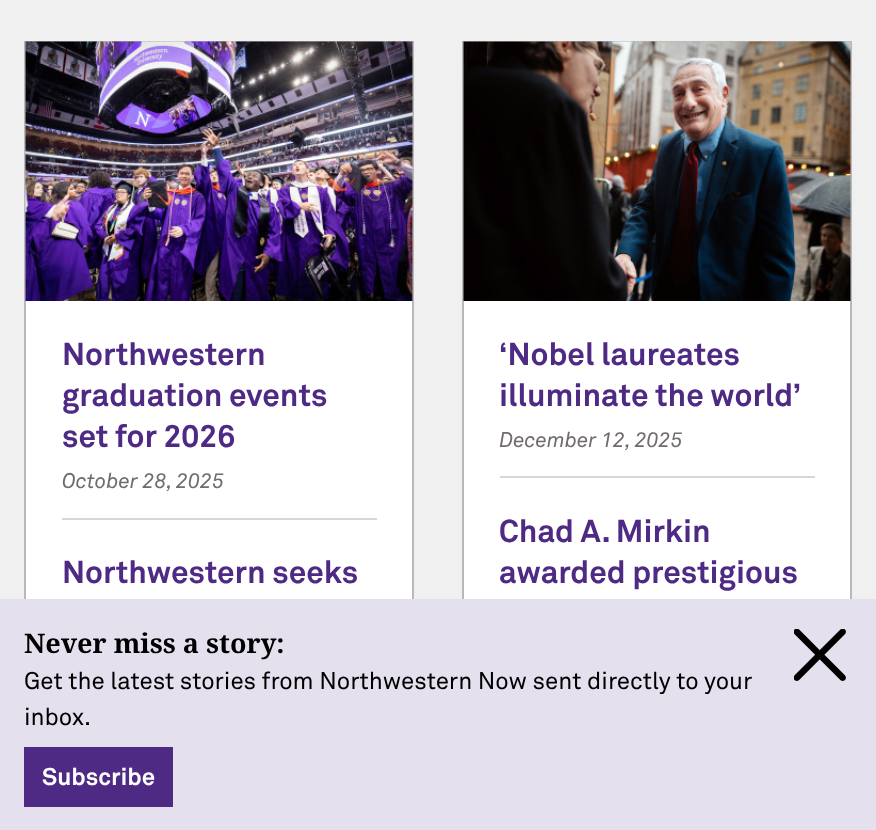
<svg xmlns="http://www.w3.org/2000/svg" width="876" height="830">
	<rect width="100%" height="100%" fill="#F0F0F0" />
	<rect x="26" y="301" width="386" height="298" fill="#FFFFFF" />
	<rect x="25" y="-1" width="388" height="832" fill="none" stroke="#BBB8B8" stroke-width="2" />
	<rect x="24" y="0" width="390" height="41" fill="#F0F0F0" />
	<rect x="24" y="41" width="390" height="2" fill="#BBB8B8" />
	<image x="25" y="41" width="388" height="260" href="assets/img1.png" />
	<rect x="62" y="518" width="315" height="2" fill="#D8D6D6" />
	<g font-family="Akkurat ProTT" font-size="31.5" font-weight="700" fill="#4E2A84">
		<text x="62" y="365">Northwestern</text>
		<text x="62" y="406">graduation events</text>
		<text x="62" y="447">set for 2026</text>
	</g>
	<text x="62" y="488" font-family="Akkurat ProTT" font-size="21" font-style="italic" fill="#716C6B">October 28, 2025</text>
	<text x="62" y="583" font-family="Akkurat ProTT" font-size="31.5" font-weight="700" fill="#4E2A84">Northwestern seeks</text>
	<rect x="464" y="301" width="386" height="298" fill="#FFFFFF" />
	<rect x="463" y="-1" width="388" height="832" fill="none" stroke="#BBB8B8" stroke-width="2" />
	<rect x="462" y="0" width="390" height="41" fill="#F0F0F0" />
	<rect x="462" y="41" width="390" height="2" fill="#BBB8B8" />
	<image x="463" y="41" width="388" height="260" href="assets/img2.png" />
	<rect x="500" y="476" width="315" height="2" fill="#D8D6D6" />
	<g font-family="Akkurat ProTT" font-size="31.5" font-weight="700" fill="#4E2A84">
		<text x="499" y="365">‘Nobel laureates</text>
		<text x="499" y="406">illuminate the world’</text>
	</g>
	<text x="499" y="447" font-family="Akkurat ProTT" font-size="21" font-style="italic" fill="#716C6B">December 12, 2025</text>
	<g font-family="Akkurat ProTT" font-size="31.5" font-weight="700" fill="#4E2A84">
		<text x="499" y="542">Chad A. Mirkin</text>
		<text x="499" y="583">awarded prestigious</text>
	</g>
	<rect x="0" y="599" width="876" height="231" fill="#E4E0EE" />
	<text x="24" y="653" font-family="Noto Serif" font-size="27" font-weight="700" fill="#000000">Never miss a story:</text>
	<g font-family="Akkurat ProTT" font-size="24" fill="#000000">
		<text x="24" y="689">Get the latest stories from Northwestern Now sent directly to your</text>
		<text x="24" y="725">inbox.</text>
	</g>
	<rect x="24" y="747" width="149" height="60" fill="#4E2A84" />
	<text x="42" y="785" font-family="Akkurat ProTT" font-size="24" font-weight="700" fill="#FFFFFF">Subscribe</text>
	<image x="794" y="629" width="52" height="52" href="assets/img3.png" />
</svg>
